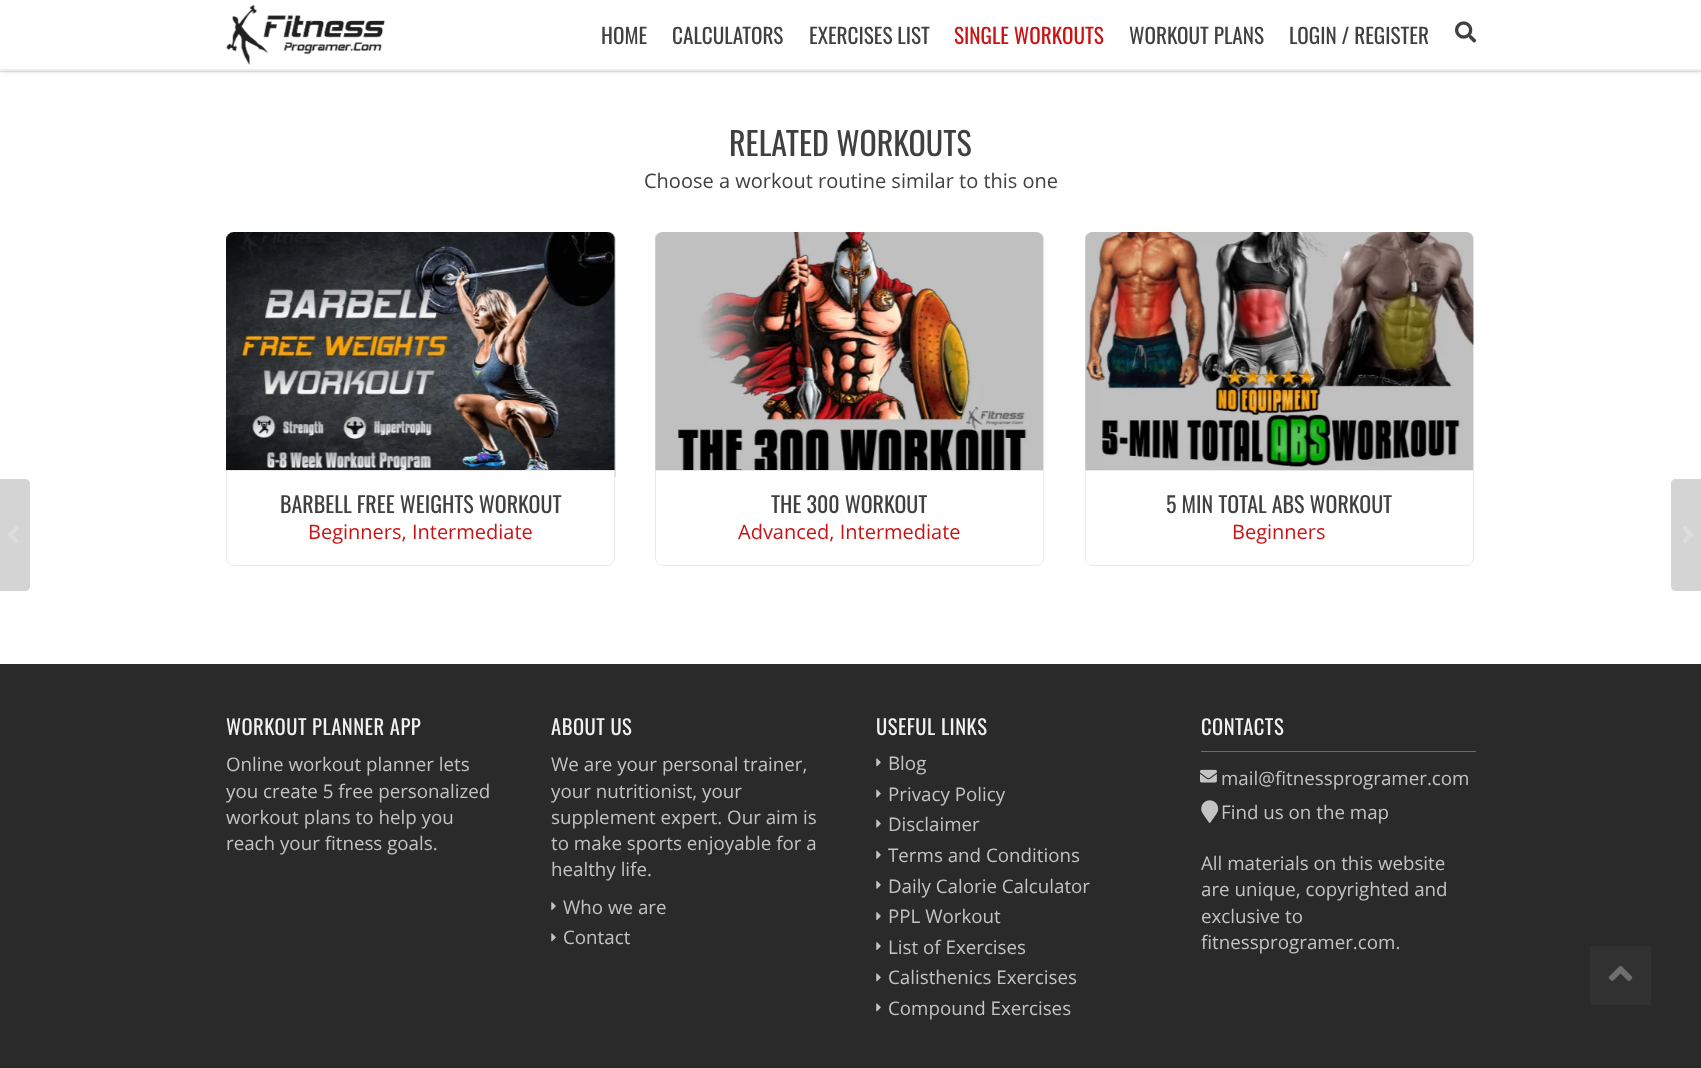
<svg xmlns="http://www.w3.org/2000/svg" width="1701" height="1068">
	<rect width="100%" height="100%" fill="#FFFFFF" />
	<rect x="0" y="70" width="1701" height="3" fill="#F9F9F9" />
	<rect x="0" y="71" width="1701" height="1" fill="#E3E3E3" />
	<rect x="0" y="1" width="1701" height="70" fill="#000000" fill-opacity="0.1" filter="blur(3px)" />
	<rect x="0" y="0" width="1701" height="69" fill="#FFFFFF" />
	<rect x="0" y="69" width="1701" height="1" fill="#EEEEEE" />
	<image x="226" y="4" width="159" height="61" href="assets/img1.png" />
	<g font-family="Oswald" font-size="21.25" fill="#404040">
		<text x="601" y="44">HOME</text>
		<text x="672" y="44">CALCULATORS</text>
		<text x="809" y="44">EXERCISES LIST</text>
	</g>
	<text x="954" y="44" font-family="Oswald" font-size="21.25" fill="#CB1313">SINGLE WORKOUTS</text>
	<g font-family="Oswald" font-size="21.25" fill="#404040">
		<text x="1129" y="44">WORKOUT PLANS</text>
		<text x="1289" y="44">LOGIN / REGISTER</text>
	</g>
	<image x="1455" y="21" width="22" height="22" href="assets/img2.png" />
	<path d="M-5 479H25C28 479 30 481 30 484V586C30 589 28 591 25 591H-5Z" fill="#D4D4D4" />
	<image x="8" y="526" width="11" height="17" href="assets/img3.png" />
	<text x="729" y="156" font-family="Oswald" font-size="32" fill="#404040">RELATED WORKOUTS</text>
	<text x="644" y="188" font-family="Open Sans" font-size="20" fill="#404040">Choose a workout routine similar to this one</text>
	<image x="226" y="232" width="390" height="245" href="assets/img4.png" />
	<path d="M226.5 470.5H614.5V558C614.5 562 611 565.5 607 565.5H234C230 565.5 226.5 562 226.5 558Z" fill="#FFFFFF" stroke="#EBEAEA" />
	<text x="280" y="513" font-family="Oswald" font-size="22" fill="#404040">BARBELL FREE WEIGHTS WORKOUT</text>
	<text x="308" y="539" font-family="Open Sans" font-size="20" fill="#CB1313">Beginners, Intermediate</text>
	<image x="655" y="232" width="390" height="245" href="assets/img5.png" />
	<path d="M655.5 470.5H1043.5V558C1043.5 562 1040 565.5 1036 565.5H663C659 565.5 655.5 562 655.5 558Z" fill="#FFFFFF" stroke="#EBEAEA" />
	<text x="771" y="513" font-family="Oswald" font-size="22" fill="#404040">THE 300 WORKOUT</text>
	<text x="738" y="539" font-family="Open Sans" font-size="20" fill="#CB1313">Advanced, Intermediate</text>
	<image x="1085" y="232" width="389" height="238" href="assets/img6.png" />
	<path d="M1085.5 470.5H1473.5V558C1473.5 562 1470 565.5 1466 565.5H1093C1089 565.5 1085.5 562 1085.5 558Z" fill="none" stroke="#EBEAEA" />
	<text x="1166" y="513" font-family="Oswald" font-size="22" fill="#404040">5 MIN TOTAL ABS WORKOUT</text>
	<text x="1232" y="539" font-family="Open Sans" font-size="20" fill="#CB1313">Beginners</text>
	<path d="M1676 479H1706V591H1676C1673 591 1671 589 1671 586V484C1671 481 1673 479 1676 479Z" fill="#D4D4D4" />
	<image x="1683" y="526" width="11" height="17" href="assets/img7.png" />
	<rect x="0" y="664" width="1701" height="404" fill="#2A2A2A" />
	<text x="226" y="735" font-family="Oswald" font-size="20.6" letter-spacing="0.5" fill="#F2F2F2">WORKOUT PLANNER APP</text>
	<g font-family="Open Sans" font-size="18.75" fill="#C3C3C3">
		<text x="226" y="771">Online workout planner lets</text>
		<text x="226" y="798">you create 5 free personalized</text>
		<text x="226" y="824">workout plans to help you</text>
		<text x="226" y="850">reach your fitness goals.</text>
	</g>
	<text x="551" y="735" font-family="Oswald" font-size="20.6" letter-spacing="0.5" fill="#F2F2F2">ABOUT US</text>
	<g font-family="Open Sans" font-size="18.75" fill="#C3C3C3">
		<text x="551" y="771">We are your personal trainer,</text>
		<text x="551" y="798">your nutritionist, your</text>
		<text x="551" y="824">supplement expert. Our aim is</text>
		<text x="551" y="850">to make sports enjoyable for a</text>
		<text x="551" y="876">healthy life.</text>
	</g>
	<image x="551" y="902" width="5" height="9" href="assets/img8.png" />
	<text x="563" y="914" font-family="Open Sans" font-size="18.75" fill="#C3C3C3">Who we are</text>
	<image x="551" y="933" width="5" height="9" href="assets/img9.png" />
	<text x="563" y="944" font-family="Open Sans" font-size="18.75" fill="#C3C3C3">Contact</text>
	<text x="876" y="735" font-family="Oswald" font-size="20.6" letter-spacing="0.5" fill="#F2F2F2">USEFUL LINKS</text>
	<image x="876" y="758" width="5" height="9" href="assets/img9.png" />
	<text x="888" y="770" font-family="Open Sans" font-size="18.75" fill="#C3C3C3">Blog</text>
	<image x="876" y="789" width="5" height="9" href="assets/img10.png" />
	<text x="888" y="801" font-family="Open Sans" font-size="18.75" fill="#C3C3C3">Privacy Policy</text>
	<image x="876" y="819" width="5" height="9" href="assets/img10.png" />
	<text x="888" y="831" font-family="Open Sans" font-size="18.75" fill="#C3C3C3">Disclaimer</text>
	<image x="876" y="850" width="5" height="9" href="assets/img11.png" />
	<text x="888" y="862" font-family="Open Sans" font-size="18.75" fill="#C3C3C3">Terms and Conditions</text>
	<image x="876" y="880" width="5" height="9" href="assets/img11.png" />
	<text x="888" y="893" font-family="Open Sans" font-size="18.75" fill="#C3C3C3">Daily Calorie Calculator</text>
	<image x="876" y="912" width="5" height="9" href="assets/img8.png" />
	<text x="888" y="923" font-family="Open Sans" font-size="18.75" fill="#C3C3C3">PPL Workout</text>
	<image x="876" y="942" width="5" height="9" href="assets/img8.png" />
	<text x="888" y="954" font-family="Open Sans" font-size="18.75" fill="#C3C3C3">List of Exercises</text>
	<image x="876" y="973" width="5" height="9" href="assets/img9.png" />
	<text x="888" y="984" font-family="Open Sans" font-size="18.75" fill="#C3C3C3">Calisthenics Exercises</text>
	<image x="876" y="1003" width="5" height="9" href="assets/img9.png" />
	<text x="888" y="1015" font-family="Open Sans" font-size="18.75" fill="#C3C3C3">Compound Exercises</text>
	<text x="1201" y="735" font-family="Oswald" font-size="20.6" letter-spacing="0.5" fill="#F2F2F2">CONTACTS</text>
	<rect x="1201" y="751" width="275" height="1" fill="#6C6C6C" />
	<image x="1200" y="769" width="17" height="14" href="assets/img12.png" />
	<text x="1221" y="785" font-family="Open Sans" font-size="18.75" fill="#C3C3C3">mail@fitnessprogramer.com</text>
	<image x="1201" y="800" width="18" height="23" href="assets/img13.png" />
	<g font-family="Open Sans" font-size="18.75" fill="#C3C3C3">
		<text x="1221" y="819">Find us on the map</text>
		<text x="1201" y="870">All materials on this website</text>
		<text x="1201" y="896">are unique, copyrighted and</text>
		<text x="1201" y="923">exclusive to</text>
		<text x="1201" y="949">fitnessprogramer.com.</text>
	</g>
	<rect x="1590" y="946" width="61" height="59" rx="1" fill="#313131" />
	<image x="1608" y="966" width="25" height="15" href="assets/img14.png" />
</svg>
